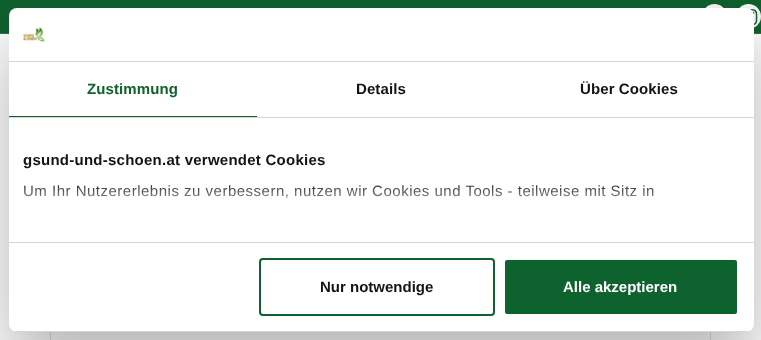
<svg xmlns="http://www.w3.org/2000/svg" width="761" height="340">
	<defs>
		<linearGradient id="g1" gradientUnits="userSpaceOnUse" x1="375" y1="242" x2="375" y2="180"><stop offset="0" stop-color="#FFFFFF" /><stop offset="0.5" stop-color="#FFFFFF" stop-opacity="0.8" /><stop offset="1" stop-color="#FFFFFF" stop-opacity="0" /></linearGradient>
		<clipPath id="clip1"><rect x="9" y="8" width="745" height="324" rx="8" /></clipPath>
	</defs>
	<rect width="100%" height="100%" fill="#FFFFFF" />
	<rect x="0" y="0" width="761" height="33" fill="#0E622E" />
	<rect x="0" y="33" width="761" height="1" fill="#2B7547" />
	<circle cx="714.5" cy="16.5" r="12.5" fill="#F9F7F3" />
	<circle cx="748.5" cy="16.5" r="12.5" fill="#F9F7F3" />
	<image x="749" y="9" width="9" height="16" href="assets/img1.png" />
	<rect x="50.5" y="106.5" width="660" height="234" fill="none" stroke="#DCDCDC" />
	<image x="50" y="332" width="661" height="8" href="assets/img2.png" />
	<rect x="9" y="40" width="745" height="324" rx="8" fill="#000000" fill-opacity="0.3" filter="blur(34px)" />
	<rect x="9" y="8" width="745" height="324" rx="8" fill="#FFFFFF" />
	<rect x="9" y="61" width="745" height="1" fill="#D6D6D6" />
	<image x="23" y="27" width="23" height="16" href="assets/img3.png" />
	<rect x="9" y="117" width="745" height="1" fill="#D6D6D6" />
	<rect x="9" y="116" width="248" height="1" fill="#0E622E" />
	<text x="87" y="94" font-family="Liberation Sans" font-size="15" font-weight="700" letter-spacing="0.1" fill="#0E622E">Zustimmung</text>
	<g font-family="Liberation Sans" font-size="15" font-weight="700" letter-spacing="0.1" fill="#141414">
		<text x="356" y="94">Details</text>
		<text x="580" y="94">Über Cookies</text>
	</g>
	<rect x="9" y="242" width="745" height="1" fill="#D6D6D6" />
	<text x="23" y="165" font-family="Liberation Sans" font-size="15" font-weight="700" letter-spacing="0.25" fill="#141414">gsund-und-schoen.at verwendet Cookies</text>
	<text x="23" y="196" font-family="Liberation Sans" font-size="15" letter-spacing="0.5" fill="#141414">Um Ihr Nutzererlebnis zu verbessern, nutzen wir Cookies und Tools - teilweise mit Sitz in</text>
	<rect x="24" y="185" width="630" height="13" fill="url(#g1)" />
	<g clip-path="url(#clip1)">
		<rect x="9" y="331" width="745" height="1" fill="#D6D6D6" />
	</g>
	<rect x="260" y="259" width="234" height="56" rx="3" fill="none" stroke="#0E622E" stroke-width="2" />
	<text x="320" y="292" font-family="Liberation Sans" font-size="15" font-weight="700" fill="#141414">Nur notwendige</text>
	<rect x="504" y="259" width="234" height="56" rx="3" fill="#0E622E" stroke="#FFFFFF" stroke-width="2" />
	<text x="563" y="292" font-family="Liberation Sans" font-size="15" font-weight="700" fill="#FFFFFF">Alle akzeptieren</text>
</svg>
